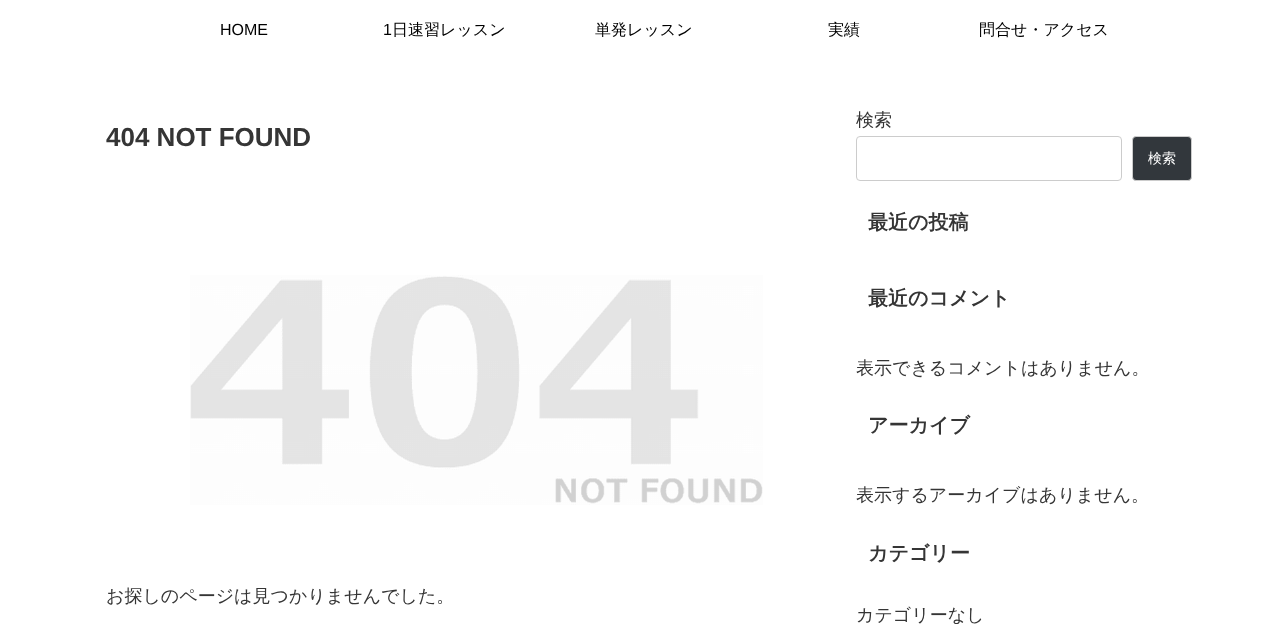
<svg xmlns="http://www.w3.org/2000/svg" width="1288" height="624">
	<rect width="100%" height="100%" fill="#FFFFFF" />
	<g font-family="Liberation Sans" font-size="16" fill="#000000">
		<text x="220" y="35">HOME</text>
		<text x="383" y="35">1</text>
	</g>
	<g font-family="WenQuanYi Zen Hei" font-size="16" font-weight="500" fill="#000000">
		<text x="392" y="35">日速習レッスン</text>
		<text x="595" y="35">単発レッスン</text>
		<text x="828" y="35">実績</text>
		<text x="979" y="35">問合せ・アクセス</text>
	</g>
	<text x="106" y="146" font-family="Liberation Sans" font-size="26" font-weight="700" fill="#353535">404 NOT FOUND</text>
	<image x="190" y="275" width="573" height="230" href="assets/img1.png" />
	<g font-family="WenQuanYi Zen Hei" font-size="18" font-weight="500" fill="#353535">
		<text x="106" y="602">お探しのページは見つかりませんでした。</text>
		<text x="856" y="126">検索</text>
	</g>
	<rect x="856.5" y="136.5" width="265" height="44" rx="3.5" fill="none" stroke="#CCCCCC" />
	<rect x="1132.5" y="136.5" width="59" height="44" rx="3.5" fill="#32373C" stroke="#CCCCCC" />
	<text x="1148" y="163" font-family="WenQuanYi Zen Hei" font-size="14" font-weight="500" fill="#FFFFFF">検索</text>
	<g font-family="WenQuanYi Zen Hei" font-size="20" font-weight="700" fill="#353535">
		<text x="868" y="229">最近の投稿</text>
		<text x="868" y="305">最近のコメント</text>
	</g>
	<text x="856" y="374" font-family="WenQuanYi Zen Hei" font-size="18" font-weight="500" fill="#353535">表示できるコメントはありません。</text>
	<text x="868" y="432" font-family="WenQuanYi Zen Hei" font-size="20" font-weight="700" fill="#353535">アーカイブ</text>
	<text x="856" y="501" font-family="WenQuanYi Zen Hei" font-size="18" font-weight="500" fill="#353535">表示するアーカイブはありません。</text>
	<text x="868" y="560" font-family="WenQuanYi Zen Hei" font-size="20" font-weight="700" fill="#353535">カテゴリー</text>
	<text x="856" y="621" font-family="WenQuanYi Zen Hei" font-size="18" font-weight="500" fill="#353535">カテゴリーなし</text>
</svg>
